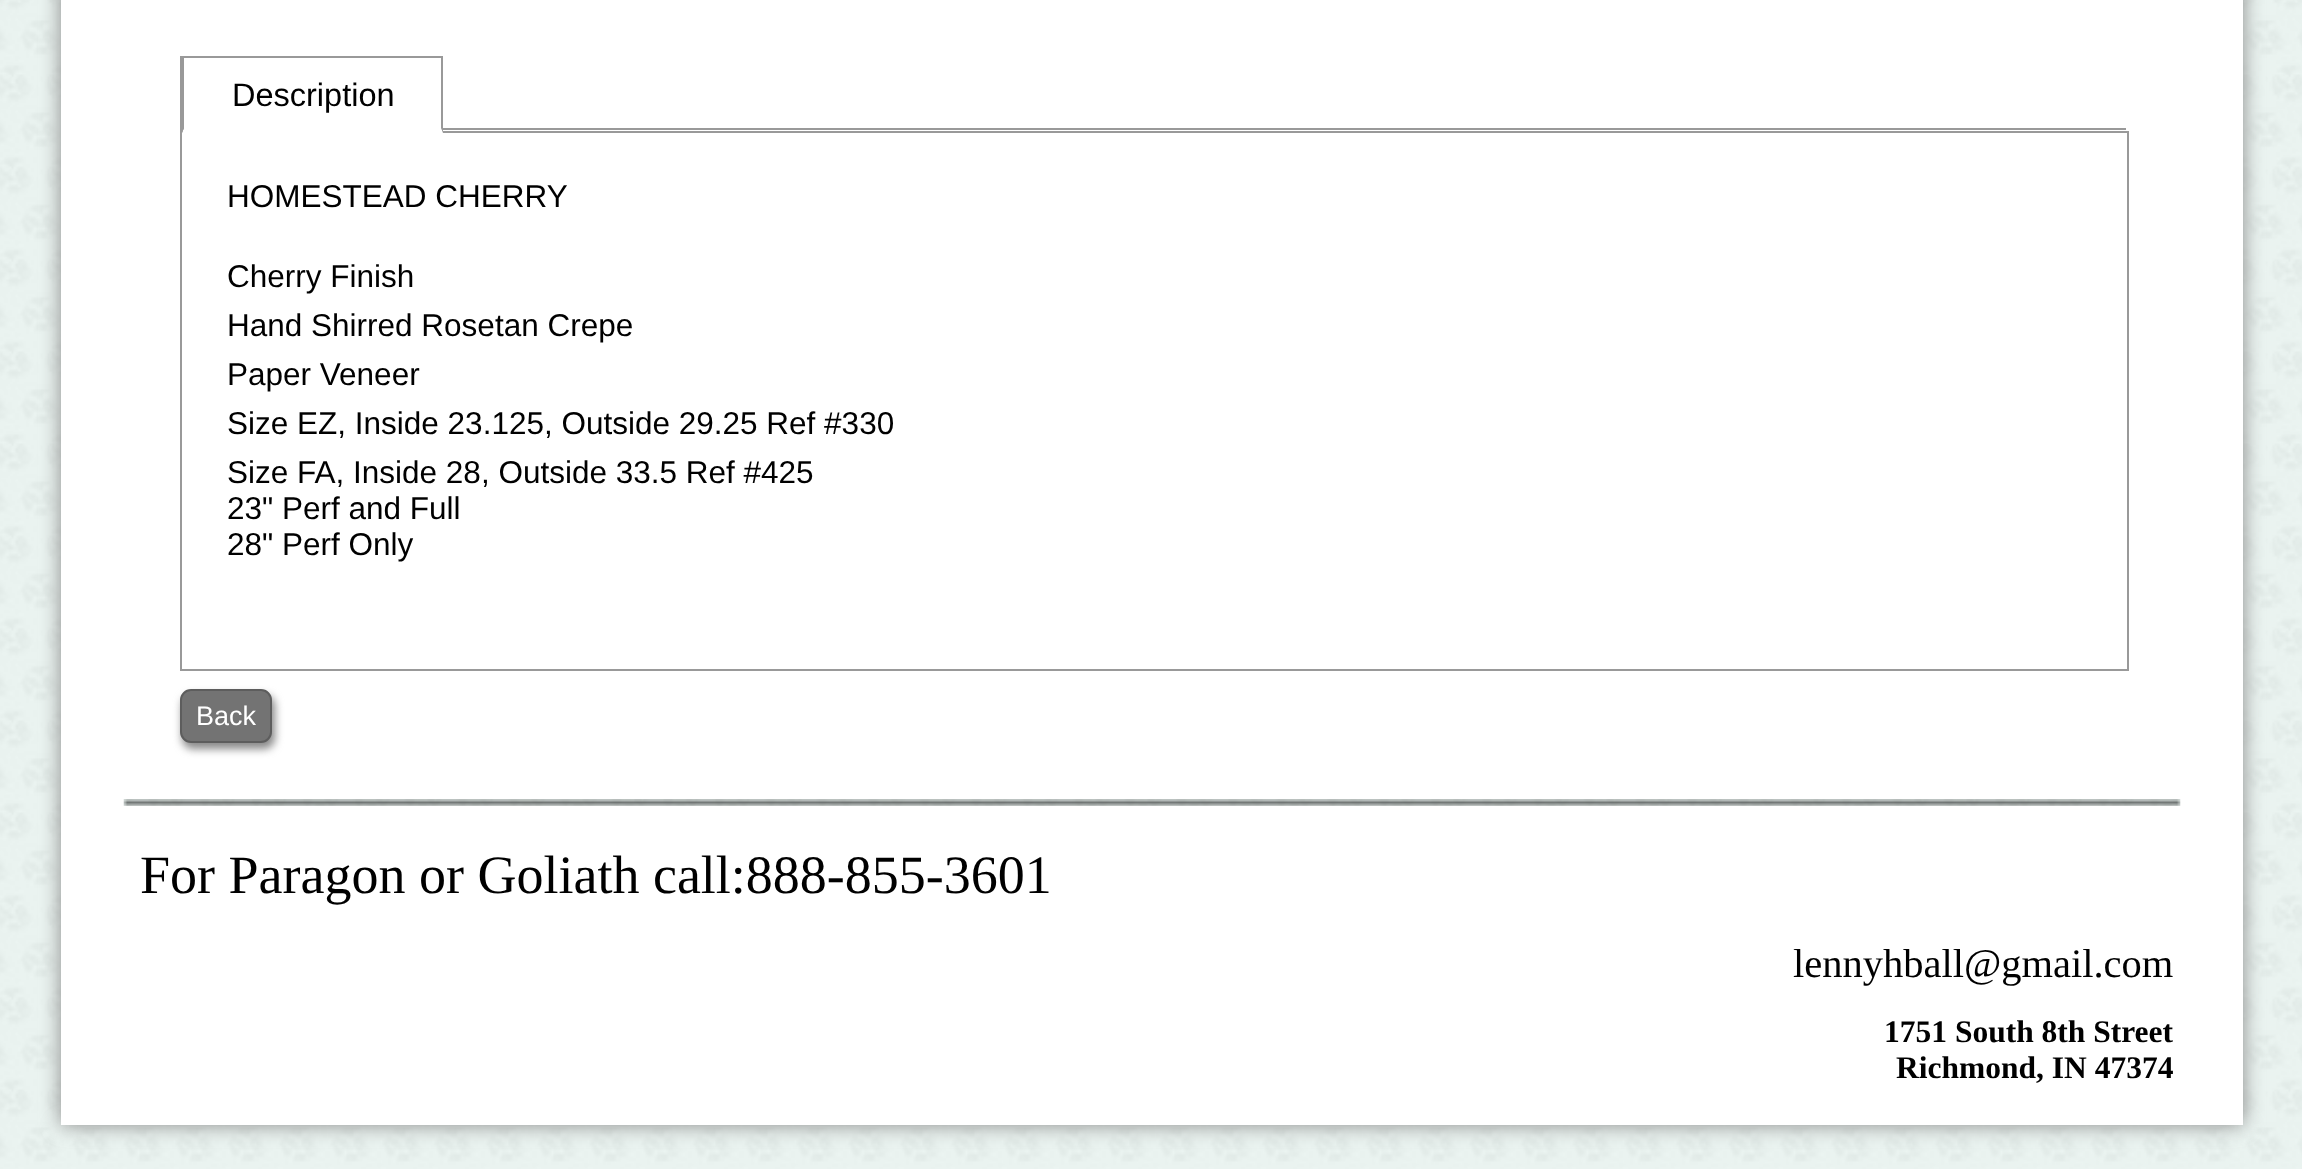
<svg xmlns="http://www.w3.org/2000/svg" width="2302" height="1169">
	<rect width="100%" height="100%" fill="#FFFFFF" />
	<image x="0" y="0" width="2302" height="1169" href="assets/img1.png" />
	<rect x="61" y="-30" width="2182" height="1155" fill="#888888" filter="blur(10px)" />
	<rect x="61" y="0" width="2182" height="1125" fill="#FFFFFF" />
	<rect x="180" y="128" width="1946" height="2" fill="#999999" />
	<rect x="180" y="56" width="2" height="75" fill="#999999" />
	<rect x="182" y="56" width="261" height="2" fill="#999999" />
	<rect x="181" y="132" width="1947" height="538" fill="none" stroke="#999999" stroke-width="2" />
	<path d="M443 56V133L441 128V58Z" fill="#999999" />
	<path d="M443 133H182L184 128H441Z" fill="#FFFFFF" />
	<path d="M182 133V56L184 58V128Z" fill="#999999" />
	<text x="232" y="106" font-family="Liberation Sans" font-size="32.5" fill="#000000">Description</text>
	<g font-family="Liberation Sans" font-size="31.5" fill="#000000">
		<text x="227" y="207">HOMESTEAD CHERRY</text>
		<text x="227" y="287">Cherry Finish</text>
		<text x="227" y="336">Hand Shirred Rosetan Crepe</text>
		<text x="227" y="385">Paper Veneer</text>
		<text x="227" y="434">Size EZ, Inside 23.125, Outside 29.25 Ref #330</text>
		<text x="227" y="483">Size FA, Inside 28, Outside 33.5 Ref #425</text>
		<text x="227" y="519">23" Perf and Full</text>
		<text x="227" y="555">28" Perf Only</text>
	</g>
	<rect x="182" y="695" width="93" height="54" rx="11" fill="#888888" filter="blur(4.5px)" />
	<rect x="181" y="690" width="90" height="52" rx="10" fill="#737373" stroke="#5D5D5D" stroke-width="2" />
	<text x="196" y="725" font-family="Liberation Sans" font-size="27" fill="#FFFFFF">Back</text>
	<image x="123" y="799" width="2058" height="7" href="assets/img2.png" />
	<text x="140" y="893" font-family="Liberation Serif" font-size="54" fill="#000000">For Paragon or Goliath call:888-855-3601</text>
	<text x="1793" y="977" font-family="Liberation Serif" font-size="40.5" fill="#000000">lennyhball@gmail.com</text>
	<g font-family="Liberation Serif" font-size="31.5" font-weight="700" fill="#000000">
		<text x="1884" y="1042">1751 South 8th Street</text>
		<text x="1896" y="1078">Richmond, IN 47374</text>
	</g>
</svg>
